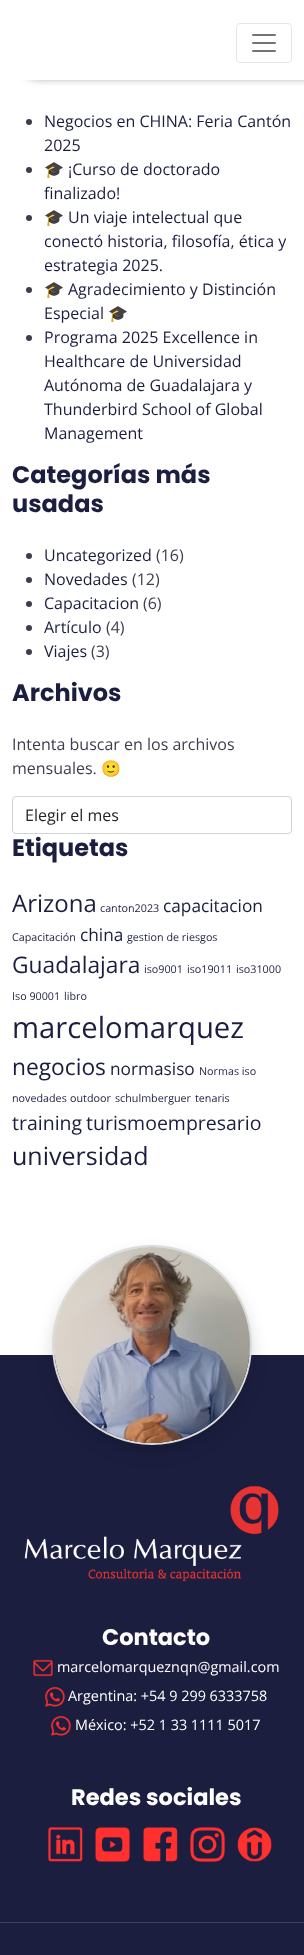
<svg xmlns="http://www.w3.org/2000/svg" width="304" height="1955">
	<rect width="100%" height="100%" fill="#FFFFFF" />
	<rect x="30" y="4" width="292" height="70" fill="#000000" filter="blur(6px)" />
	<rect x="16" y="0" width="288" height="80" fill="#FFFFFF" />
	<rect x="236.5" y="23.5" width="55" height="39" rx="3.5" fill="none" stroke="#E6E6E6" />
	<image x="252" y="34" width="24" height="18" href="assets/img1.png" />
	<circle cx="29" cy="122" r="3" fill="#3D3E4E" />
	<g font-family="Open Sans" font-size="16" fill="#1C1E40">
		<text x="44" y="127">Negocios en CHINA: Feria Cantón</text>
		<text x="44" y="151">2025</text>
	</g>
	<circle cx="29" cy="170" r="3" fill="#3D3E4E" />
	<text x="44" y="175" font-family="Noto Color Emoji" font-size="16" fill="#1C1E40">🎓</text>
	<g font-family="Open Sans" font-size="16" fill="#1C1E40">
		<text x="68" y="175">¡Curso de doctorado</text>
		<text x="44" y="199">finalizado!</text>
	</g>
	<circle cx="29" cy="218" r="3" fill="#3D3E4E" />
	<text x="44" y="223" font-family="Noto Color Emoji" font-size="16" fill="#1C1E40">🎓</text>
	<g font-family="Open Sans" font-size="16" fill="#1C1E40">
		<text x="68" y="223">Un viaje intelectual que</text>
		<text x="44" y="247">conectó historia, filosofía, ética y</text>
		<text x="44" y="271">estrategia 2025.</text>
	</g>
	<circle cx="29" cy="290" r="3" fill="#3D3E4E" />
	<text x="44" y="295" font-family="Noto Color Emoji" font-size="16" fill="#1C1E40">🎓</text>
	<g font-family="Open Sans" font-size="16" fill="#1C1E40">
		<text x="68" y="295">Agradecimiento y Distinción</text>
		<text x="44" y="319">Especial</text>
	</g>
	<text x="108" y="319" font-family="Noto Color Emoji" font-size="16" fill="#1C1E40">🎓</text>
	<circle cx="29" cy="338" r="3" fill="#3D3E4E" />
	<g font-family="Open Sans" font-size="16" fill="#1C1E40">
		<text x="44" y="343">Programa 2025 Excellence in</text>
		<text x="44" y="367">Healthcare de Universidad</text>
		<text x="44" y="391">Autónoma de Guadalajara y</text>
		<text x="44" y="415">Thunderbird School of Global</text>
		<text x="44" y="439">Management</text>
	</g>
	<g font-family="Poppins" font-size="24" font-weight="700" fill="#1C1E40">
		<text x="12" y="483">Categorías más</text>
		<text x="12" y="512">usadas</text>
	</g>
	<circle cx="29" cy="556" r="3" fill="#3D3E4E" />
	<text x="44" y="561" font-family="Open Sans" font-size="16" fill="#1C1E40">Uncategorized</text>
	<text x="156" y="561" font-family="Open Sans" font-size="16" fill="#3D3E4E">(16)</text>
	<circle cx="29" cy="580" r="3" fill="#3D3E4E" />
	<text x="44" y="585" font-family="Open Sans" font-size="16" fill="#1C1E40">Novedades</text>
	<text x="132" y="585" font-family="Open Sans" font-size="16" fill="#3D3E4E">(12)</text>
	<circle cx="29" cy="604" r="3" fill="#3D3E4E" />
	<text x="44" y="609" font-family="Open Sans" font-size="16" fill="#1C1E40">Capacitacion</text>
	<text x="143" y="609" font-family="Open Sans" font-size="16" fill="#3D3E4E">(6)</text>
	<circle cx="29" cy="628" r="3" fill="#3D3E4E" />
	<text x="44" y="633" font-family="Open Sans" font-size="16" fill="#1C1E40">Artículo</text>
	<text x="106" y="633" font-family="Open Sans" font-size="16" fill="#3D3E4E">(4)</text>
	<circle cx="29" cy="652" r="3" fill="#3D3E4E" />
	<text x="44" y="657" font-family="Open Sans" font-size="16" fill="#1C1E40">Viajes</text>
	<text x="91" y="657" font-family="Open Sans" font-size="16" fill="#3D3E4E">(3)</text>
	<text x="12" y="701" font-family="Poppins" font-size="24" font-weight="700" fill="#1C1E40">Archivos</text>
	<g font-family="Open Sans" font-size="16" fill="#3D3E4E">
		<text x="12" y="750">Intenta buscar en los archivos</text>
		<text x="12" y="774">mensuales.</text>
	</g>
	<text x="101" y="774" font-family="Noto Color Emoji" font-size="16" fill="#3D3E4E">🙂</text>
	<rect x="12.5" y="796.5" width="279" height="37" rx="3.5" fill="none" stroke="#CED4DA" />
	<text x="25" y="821" font-family="Open Sans" font-size="16" fill="#212529">Elegir el mes</text>
	<text x="12" y="856" font-family="Poppins" font-size="24" font-weight="700" fill="#1C1E40">Etiquetas</text>
	<text x="12" y="912" font-family="Open Sans" font-size="24" fill="#1C1E40">Arizona</text>
	<text x="100" y="912" font-family="Open Sans" font-size="10.75" fill="#1C1E40">canton2023</text>
	<text x="163" y="912" font-family="Open Sans" font-size="17.25" fill="#1C1E40">capacitacion</text>
	<text x="12" y="941" font-family="Open Sans" font-size="10.75" fill="#1C1E40">Capacitación</text>
	<text x="80" y="941" font-family="Open Sans" font-size="17.25" fill="#1C1E40">china</text>
	<text x="127" y="941" font-family="Open Sans" font-size="10.75" fill="#1C1E40">gestion de riesgos</text>
	<text x="12" y="973" font-family="Open Sans" font-size="22.75" fill="#1C1E40">Guadalajara</text>
	<g font-family="Open Sans" font-size="10.75" fill="#1C1E40">
		<text x="144" y="973">iso9001</text>
		<text x="187" y="973">iso19011</text>
		<text x="236" y="973">iso31000</text>
		<text x="12" y="1000">Iso 90001</text>
		<text x="64" y="1000">libro</text>
	</g>
	<text x="12" y="1038" font-family="Open Sans" font-size="29.25" fill="#1C1E40">marcelomarquez</text>
	<text x="12" y="1075" font-family="Open Sans" font-size="22.75" fill="#1C1E40">negocios</text>
	<text x="110" y="1075" font-family="Open Sans" font-size="17.25" fill="#1C1E40">normasiso</text>
	<g font-family="Open Sans" font-size="10.75" fill="#1C1E40">
		<text x="199" y="1075">Normas iso</text>
		<text x="12" y="1102">novedades</text>
		<text x="70" y="1102">outdoor</text>
		<text x="115" y="1102">schulmberguer</text>
		<text x="195" y="1102">tenaris</text>
	</g>
	<g font-family="Open Sans" font-size="19.5" fill="#1C1E40">
		<text x="12" y="1130">training</text>
		<text x="86" y="1130">turismoempresario</text>
	</g>
	<text x="12" y="1165" font-family="Open Sans" font-size="25" fill="#1C1E40">universidad</text>
	<rect x="0" y="1355" width="304" height="600" fill="#1C1E40" />
	<rect x="52" y="1253" width="200" height="200" rx="100" fill="#000000" fill-opacity="0.15" filter="blur(8px)" />
	<circle cx="152" cy="1345" r="99" fill="none" stroke="#DBDBDB" stroke-width="2" />
	<image x="54" y="1247" width="196" height="196" href="assets/img2.png" />
	<image x="24" y="1486" width="255" height="96" href="assets/img3.png" />
	<text x="102" y="1645" font-family="Poppins" font-size="22.5" font-weight="700" fill="#FFFFFF">Contacto</text>
	<image x="33" y="1659" width="20" height="18" href="assets/img4.png" />
	<text x="57" y="1672" font-family="Open Sans" font-size="14.4" fill="#FFFFFF">marcelomarqueznqn@gmail.com</text>
	<image x="45" y="1687" width="20" height="20" href="assets/img5.png" />
	<text x="68" y="1701" font-family="Open Sans" font-size="14.4" fill="#FFFFFF">Argentina: +54 9 299 6333758</text>
	<image x="51" y="1716" width="20" height="20" href="assets/img5.png" />
	<text x="75" y="1730" font-family="Open Sans" font-size="14.4" fill="#FFFFFF">México: +52 1 33 1111 5017</text>
	<text x="71" y="1805" font-family="Poppins" font-size="22.5" font-weight="700" fill="#FFFFFF">Redes sociales</text>
	<image x="48" y="1827" width="35" height="35" href="assets/img6.png" />
	<image x="95" y="1827" width="35" height="35" href="assets/img7.png" />
	<image x="143" y="1827" width="35" height="35" href="assets/img8.png" />
	<image x="190" y="1827" width="35" height="35" href="assets/img9.png" />
	<image x="237" y="1827" width="35" height="35" href="assets/img10.png" />
	<rect x="0" y="1922" width="304" height="1" fill="#3E405A" />
</svg>
